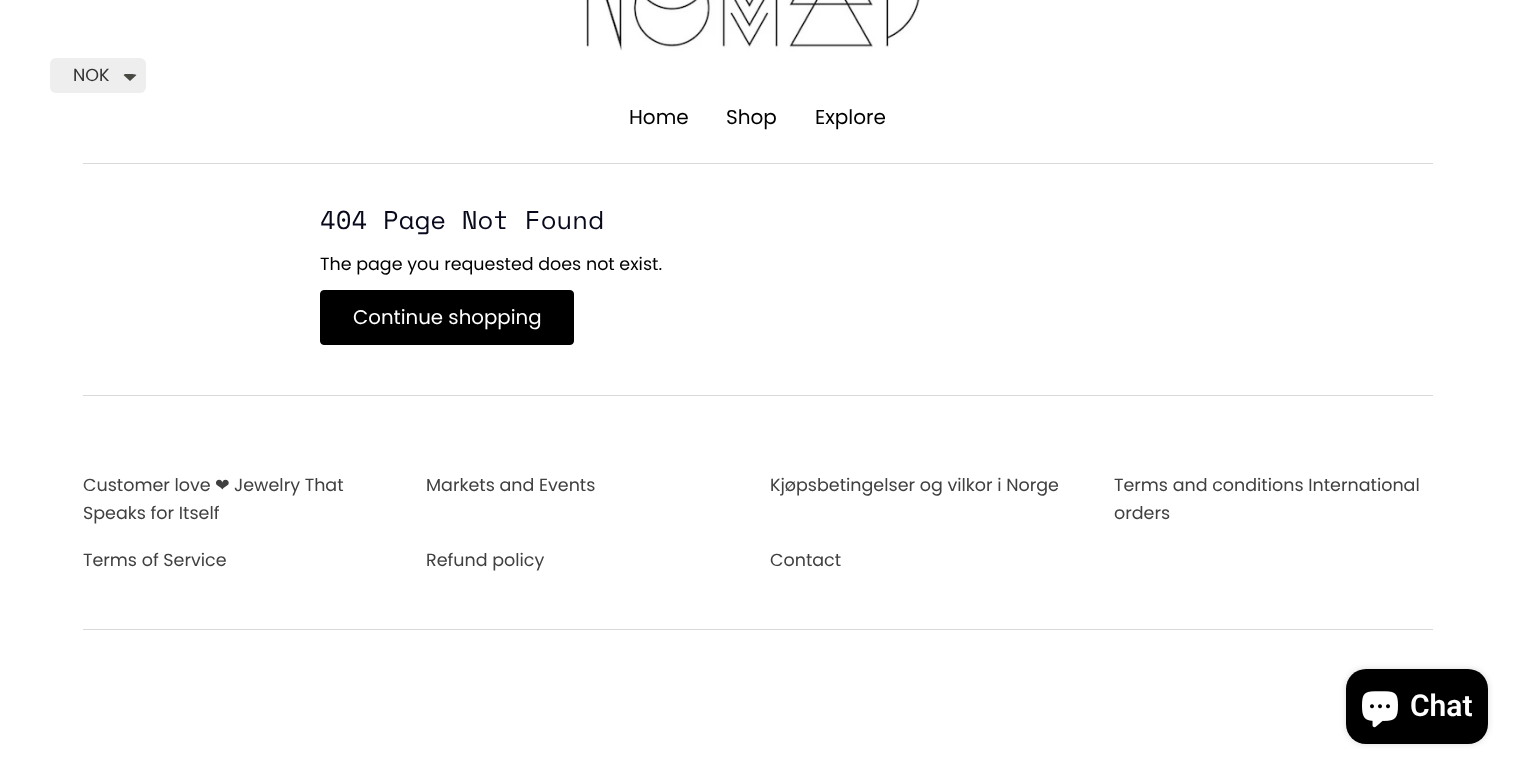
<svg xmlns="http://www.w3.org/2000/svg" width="1515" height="769">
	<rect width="100%" height="100%" fill="#FFFFFF" />
	<rect x="50" y="58" width="96" height="35" rx="6" fill="#EEEEEE" />
	<text x="73" y="81" font-family="Poppins" font-size="17.5" fill="#333333">NOK</text>
	<path d="M126 74C128.5 74 134.5 73.5 136.5 75L130 81L123.5 75C124 74.5 125 74 126 74Z" fill="#474942" />
	<image x="586" y="0" width="334" height="51" href="assets/img1.png" />
	<rect x="83" y="163" width="1350" height="1" fill="#D9D9D9" />
	<g font-family="Poppins" font-size="20" fill="#000000">
		<text x="629" y="124">Home</text>
		<text x="726" y="124">Shop</text>
		<text x="815" y="124">Explore</text>
	</g>
	<text x="320" y="229" font-family="Space Mono" font-size="25.75" fill="#080A1C">404 Page Not Found</text>
	<text x="320" y="270" font-family="Poppins" font-size="17.5" fill="#000000">The page you requested does not exist.</text>
	<rect x="320.5" y="290.5" width="253" height="54" rx="3.5" fill="#000000" stroke="#000000" />
	<text x="353" y="324" font-family="Poppins" font-size="19.75" fill="#FFFFFF">Continue shopping</text>
	<rect x="83" y="395" width="1350" height="1" fill="#D9D9D9" />
	<text x="83" y="491" font-family="Poppins" font-size="17.5" fill="#404040">Customer love</text>
	<text x="215" y="491" font-family="DejaVu Sans" font-size="17.5" fill="#404040">❤︎</text>
	<g font-family="Poppins" font-size="17.5" fill="#404040">
		<text x="234" y="491">Jewelry That</text>
		<text x="83" y="519">Speaks for Itself</text>
		<text x="426" y="491">Markets and Events</text>
		<text x="770" y="491">Kjøpsbetingelser og vilkor i Norge</text>
		<text x="1114" y="491">Terms and conditions International</text>
		<text x="1114" y="519">orders</text>
		<text x="83" y="566">Terms of Service</text>
		<text x="426" y="566">Refund policy</text>
		<text x="770" y="566">Contact</text>
	</g>
	<rect x="83" y="629" width="1350" height="1" fill="#D9D9D9" />
	<rect x="1346" y="669" width="142" height="75" rx="20" fill="#000000" fill-opacity="0.15" filter="blur(3px)" />
	<rect x="1346" y="669" width="142" height="75" rx="20" fill="#000000" />
	<image x="1362" y="691" width="36" height="37" href="assets/img2.png" />
	<text x="1410" y="716" font-family="Roboto" font-size="30" font-weight="600" fill="#FFFFFF">Chat</text>
</svg>
